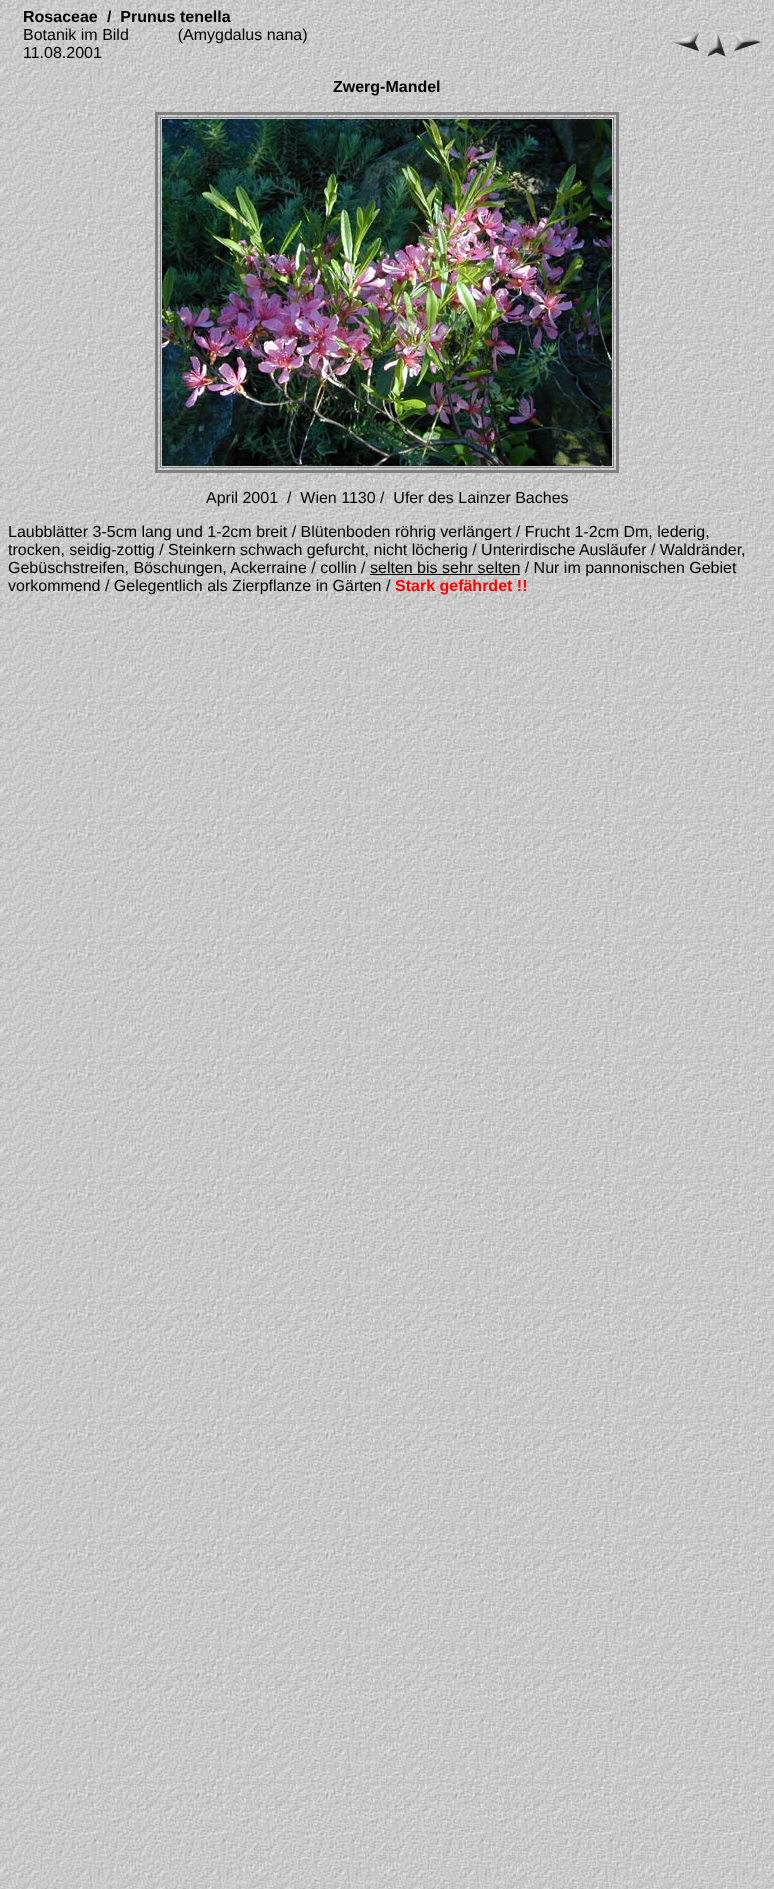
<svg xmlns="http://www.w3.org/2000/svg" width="774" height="1889">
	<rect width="100%" height="100%" fill="#FFFFFF" />
	<image x="0" y="0" width="774" height="1889" href="assets/img1.png" />
	<g font-family="Liberation Sans" font-size="16" font-weight="700" fill="#000000">
		<text x="23" y="22">Rosaceae</text>
		<text x="107" y="22" xml:space="preserve">/  Prunus tenella</text>
	</g>
	<g font-family="Liberation Sans" font-size="16" fill="#000000">
		<text x="23" y="40" xml:space="preserve">Botanik im Bild           (Amygdalus nana)</text>
		<text x="23" y="58">11.08.2001</text>
	</g>
	<image x="672" y="33" width="27" height="18" href="assets/img2.png" />
	<image x="707" y="29" width="19" height="28" href="assets/img3.png" />
	<image x="734" y="33" width="27" height="19" href="assets/img4.png" />
	<text x="333" y="92" font-family="Liberation Sans" font-size="16" font-weight="700" fill="#000000">Zwerg-Mandel</text>
	<rect x="156.5" y="113.5" width="461" height="358" fill="none" stroke="#808080" stroke-width="3" />
	<rect x="160.5" y="117.5" width="453" height="350" fill="none" stroke="#808080" />
	<image x="162" y="119" width="450" height="347" href="assets/img5.png" />
	<g font-family="Liberation Sans" font-size="16" fill="#000000">
		<text x="206" y="503" xml:space="preserve">April 2001  /  Wien 1130 /  Ufer des Lainzer Baches</text>
		<text x="8" y="537">Laubblätter 3-5cm lang und 1-2cm breit / Blütenboden röhrig verlängert / Frucht 1-2cm Dm, lederig,</text>
		<text x="8" y="555">trocken, seidig-zottig / Steinkern schwach gefurcht, nicht löcherig / Unterirdische Ausläufer / Waldränder,</text>
		<text x="8" y="573">Gebüschstreifen, Böschungen, Ackerraine / collin / selten bis sehr selten / Nur im pannonischen Gebiet</text>
	</g>
	<rect x="370" y="574" width="150" height="1" fill="#000000" />
	<text x="8" y="591" font-family="Liberation Sans" font-size="16" fill="#000000">vorkommend / Gelegentlich als Zierpflanze in Gärten /</text>
	<text x="395" y="591" font-family="Liberation Sans" font-size="16" font-weight="700" fill="#FF0000">Stark gefährdet !!</text>
</svg>
